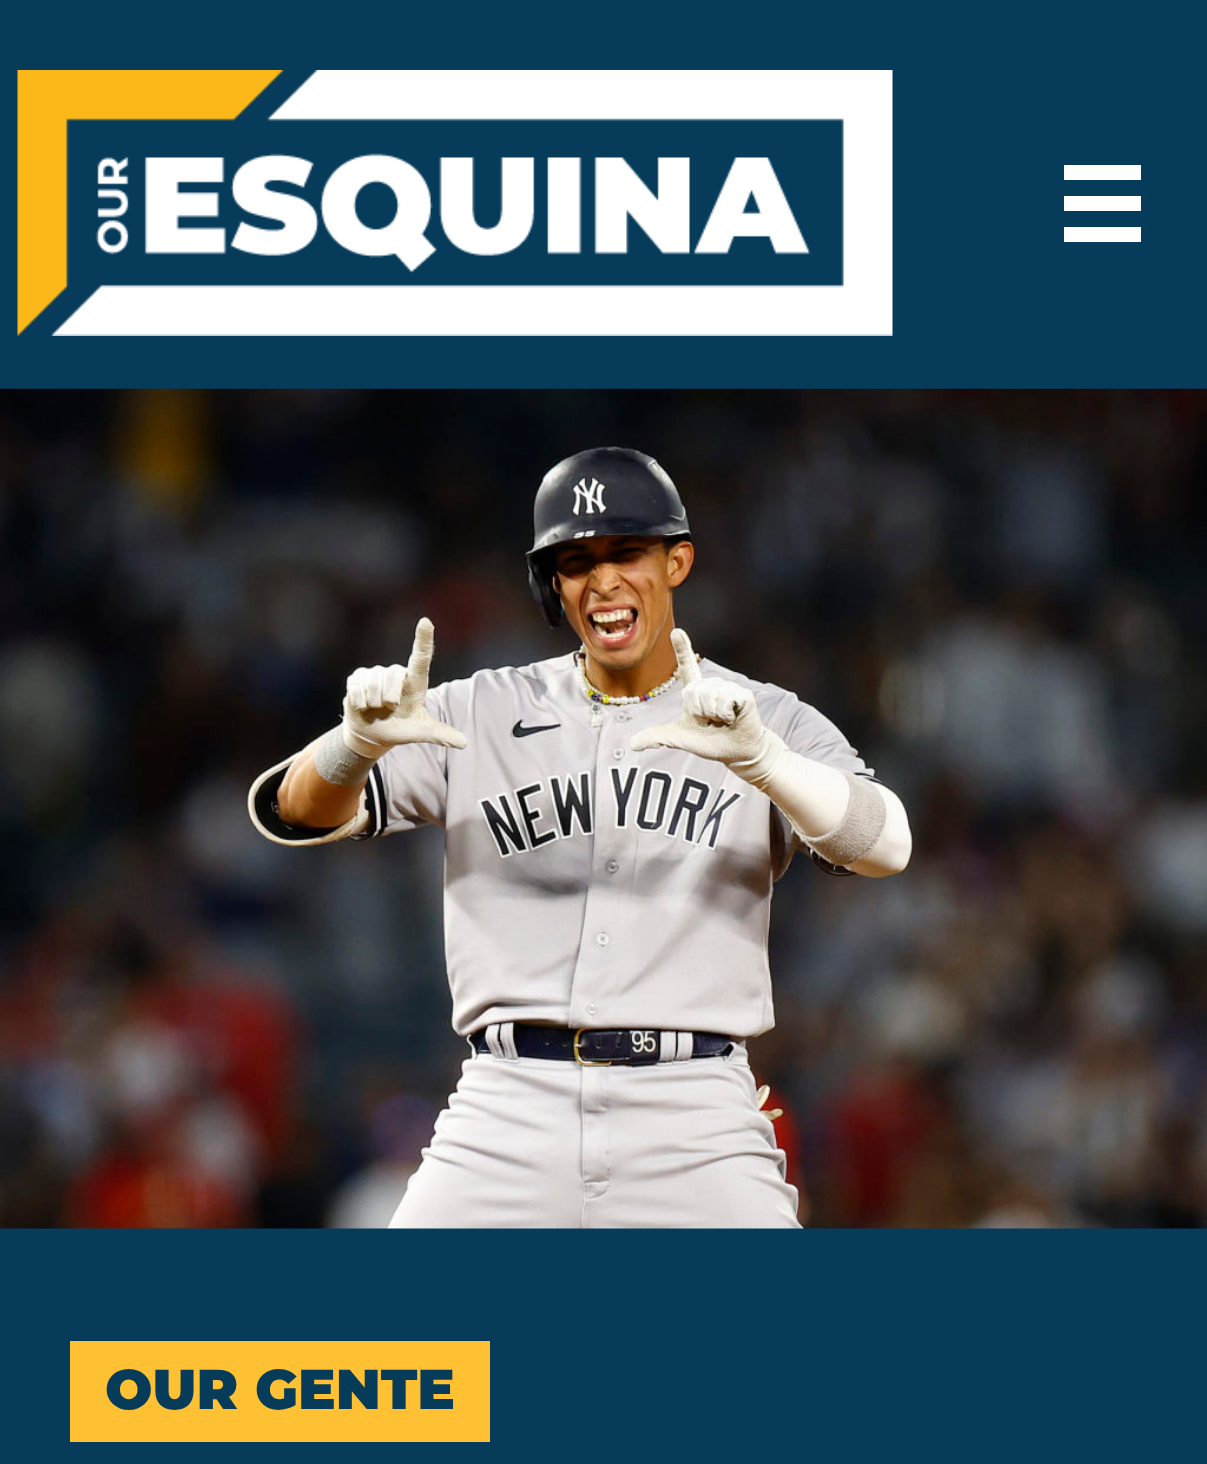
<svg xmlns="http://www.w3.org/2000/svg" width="1207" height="1464">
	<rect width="100%" height="100%" fill="#063B5A" />
	<image x="17" y="70" width="876" height="266" href="assets/img1.png" />
	<rect x="1064" y="165" width="77" height="15" fill="#FFFFFF" />
	<rect x="1064" y="196" width="77" height="15" fill="#FFFFFF" />
	<rect x="1064" y="227" width="77" height="15" fill="#FFFFFF" />
	<image x="0" y="388" width="1207" height="841" href="assets/img2.png" />
	<rect x="70" y="1341" width="420" height="101" fill="#FDC133" />
	<text x="105" y="1409" font-family="Montserrat" font-size="56" font-weight="900" fill="#063B5A">OUR GENTE</text>
</svg>
